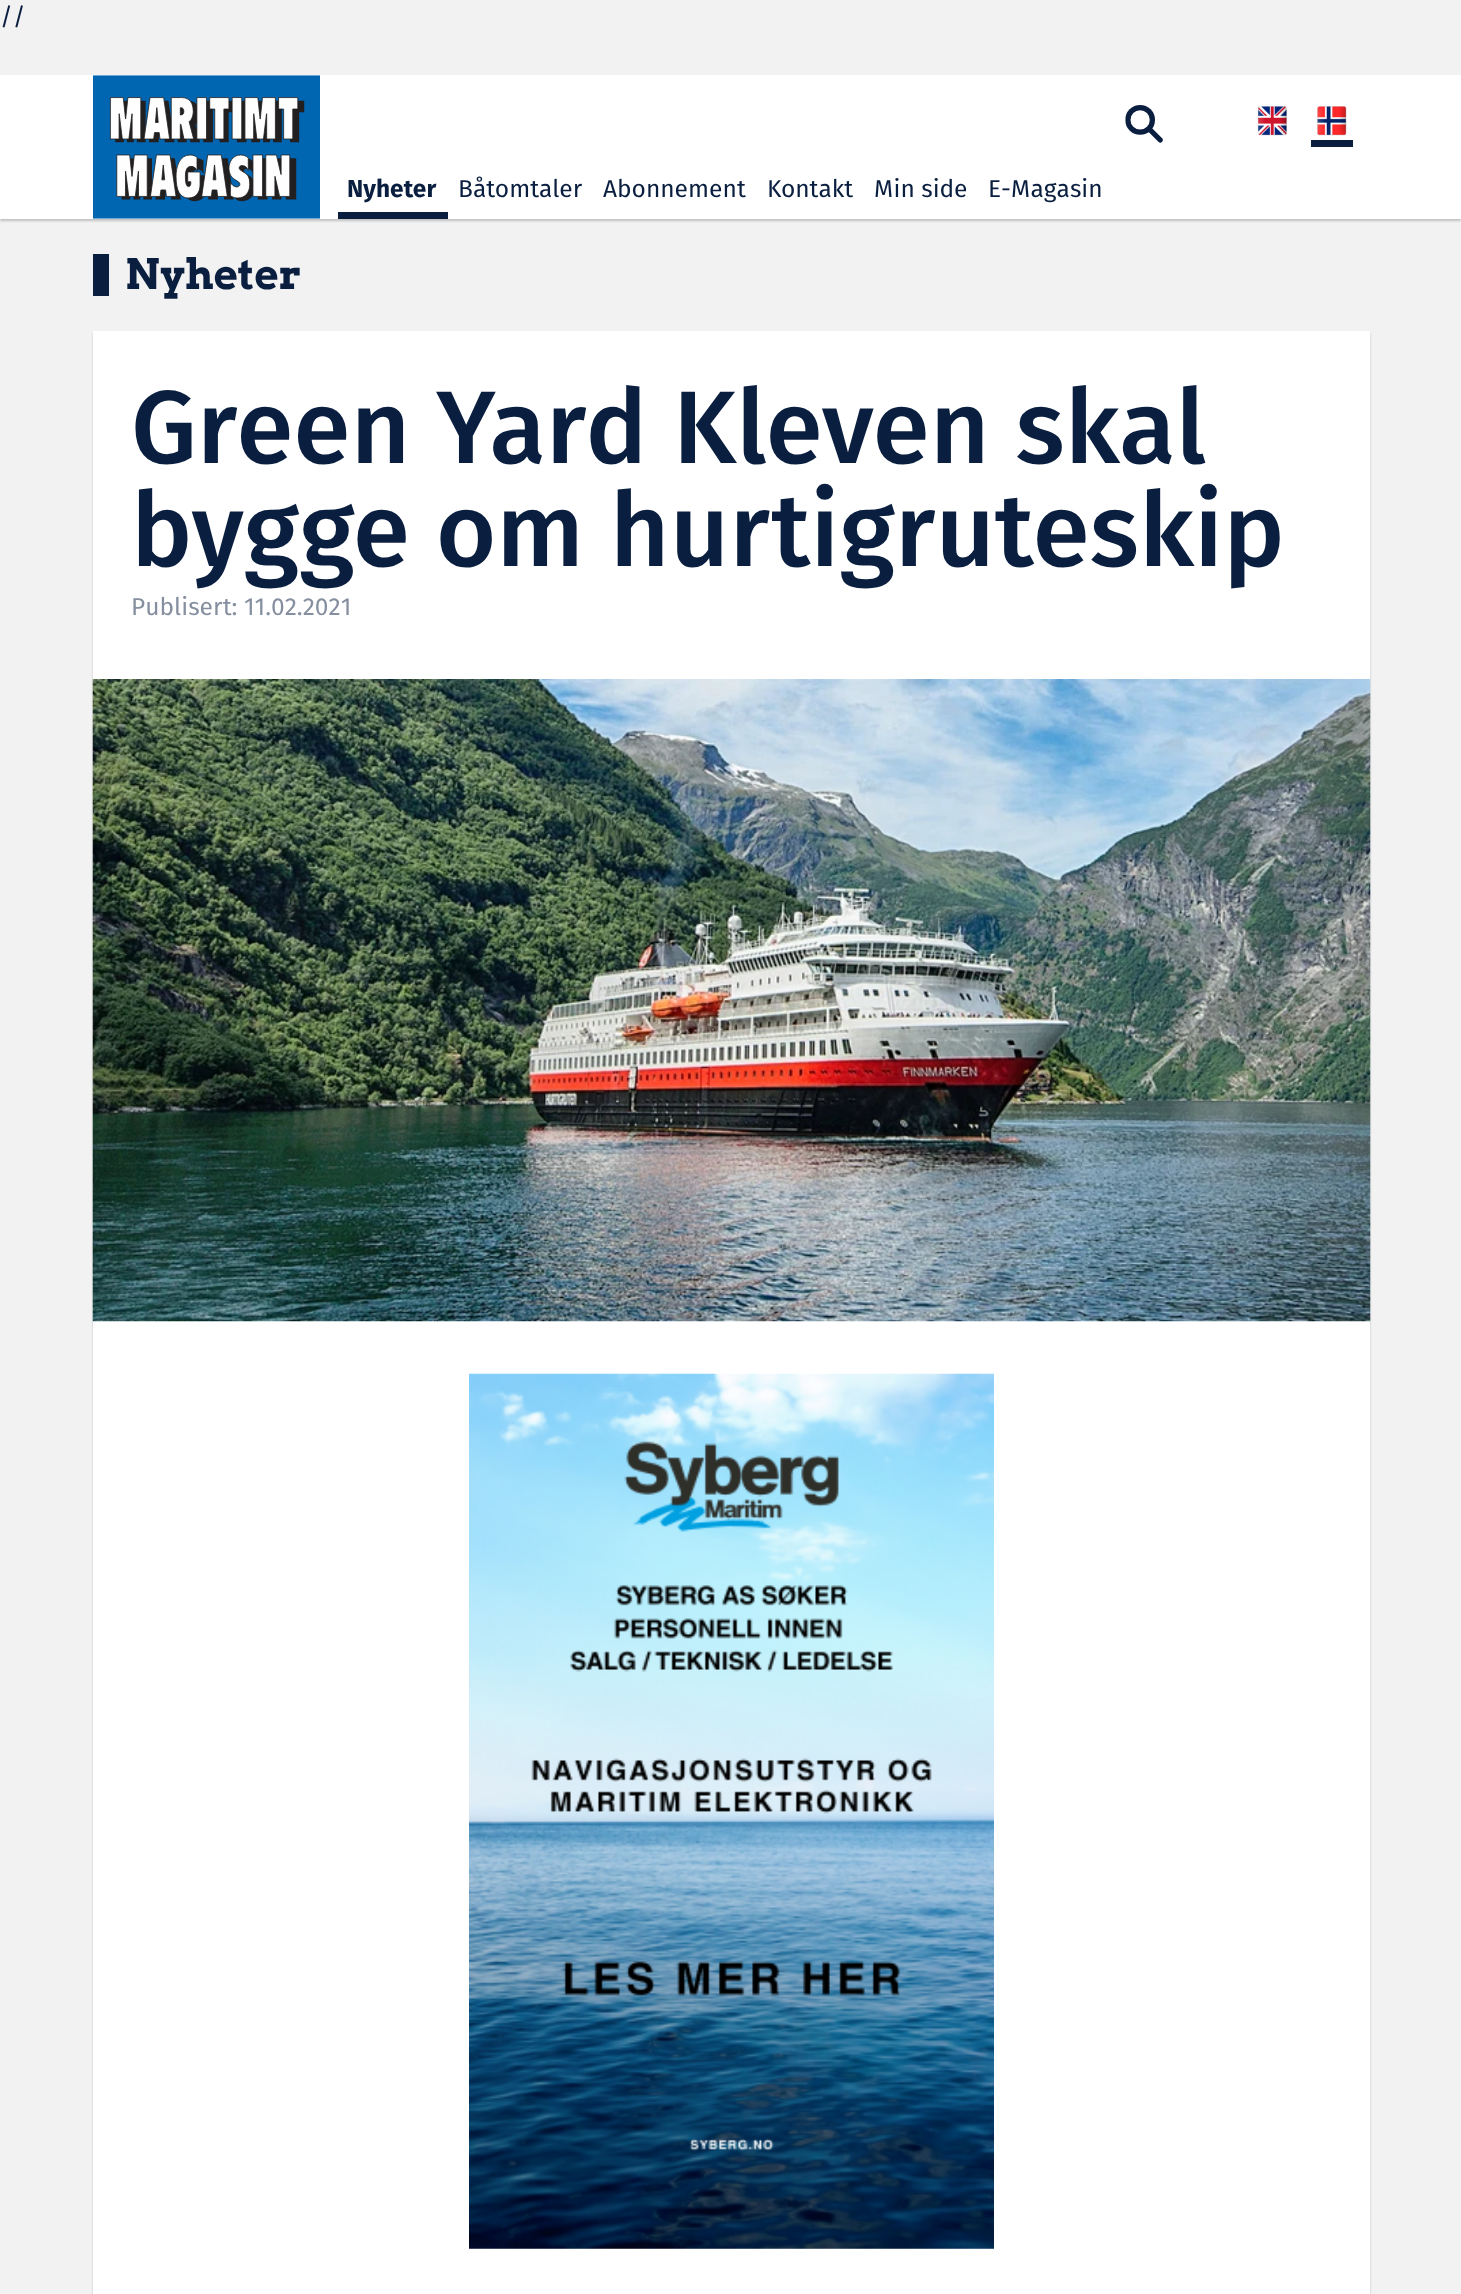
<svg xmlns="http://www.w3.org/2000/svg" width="1461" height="2294">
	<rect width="100%" height="100%" fill="#F2F2F2" />
	<text x="0" y="25" font-family="Fira Sans" font-size="24.5" fill="#0A1F3F">//</text>
	<rect x="0" y="77" width="1461" height="144" fill="#000000" fill-opacity="0.2" filter="blur(1px)" />
	<rect x="0" y="75" width="1461" height="144" fill="#FFFFFF" />
	<image x="93" y="75" width="227" height="144" href="assets/img1.png" />
	<image x="1125" y="105" width="38" height="38" href="assets/img2.png" />
	<image x="1257" y="106" width="30" height="30" href="assets/img3.png" />
	<rect x="1311" y="140" width="42" height="7" fill="#0A1F3F" />
	<image x="1317" y="106" width="30" height="30" href="assets/img4.png" />
	<rect x="338" y="212" width="110" height="7" fill="#0A1F3F" />
	<text x="347" y="197" font-family="Fira Sans" font-size="24.5" font-weight="700" fill="#0A1F3F">Nyheter</text>
	<g font-family="Fira Sans" font-size="24.5" fill="#0A1F3F">
		<text x="458" y="197">Båtomtaler</text>
		<text x="603" y="197">Abonnement</text>
		<text x="767" y="197">Kontakt</text>
		<text x="874" y="197">Min side</text>
		<text x="988" y="197">E-Magasin</text>
	</g>
	<rect x="93" y="254" width="16" height="42" fill="#0A1F3F" />
	<text x="125" y="289" font-family="Arvo" font-size="42" font-weight="700" fill="#0A1F3F">Nyheter</text>
	<rect x="93" y="333" width="1277" height="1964" fill="#000000" fill-opacity="0.2" filter="blur(1px)" />
	<rect x="93" y="331" width="1277" height="1963" fill="#FFFFFF" />
	<g font-family="Fira Sans" font-size="103.25" font-weight="500" fill="#0A1F3F">
		<text x="131" y="463">Green Yard Kleven skal</text>
		<text x="131" y="566">bygge om hurtigruteskip</text>
	</g>
	<text x="131" y="615" font-family="Fira Sans" font-size="24.5" fill="#858F9F">Publisert: 11.02.2021</text>
	<image x="92" y="679" width="1279" height="643" href="assets/img5.png" />
	<image x="469" y="1373" width="525" height="876" href="assets/img6.png" />
</svg>
